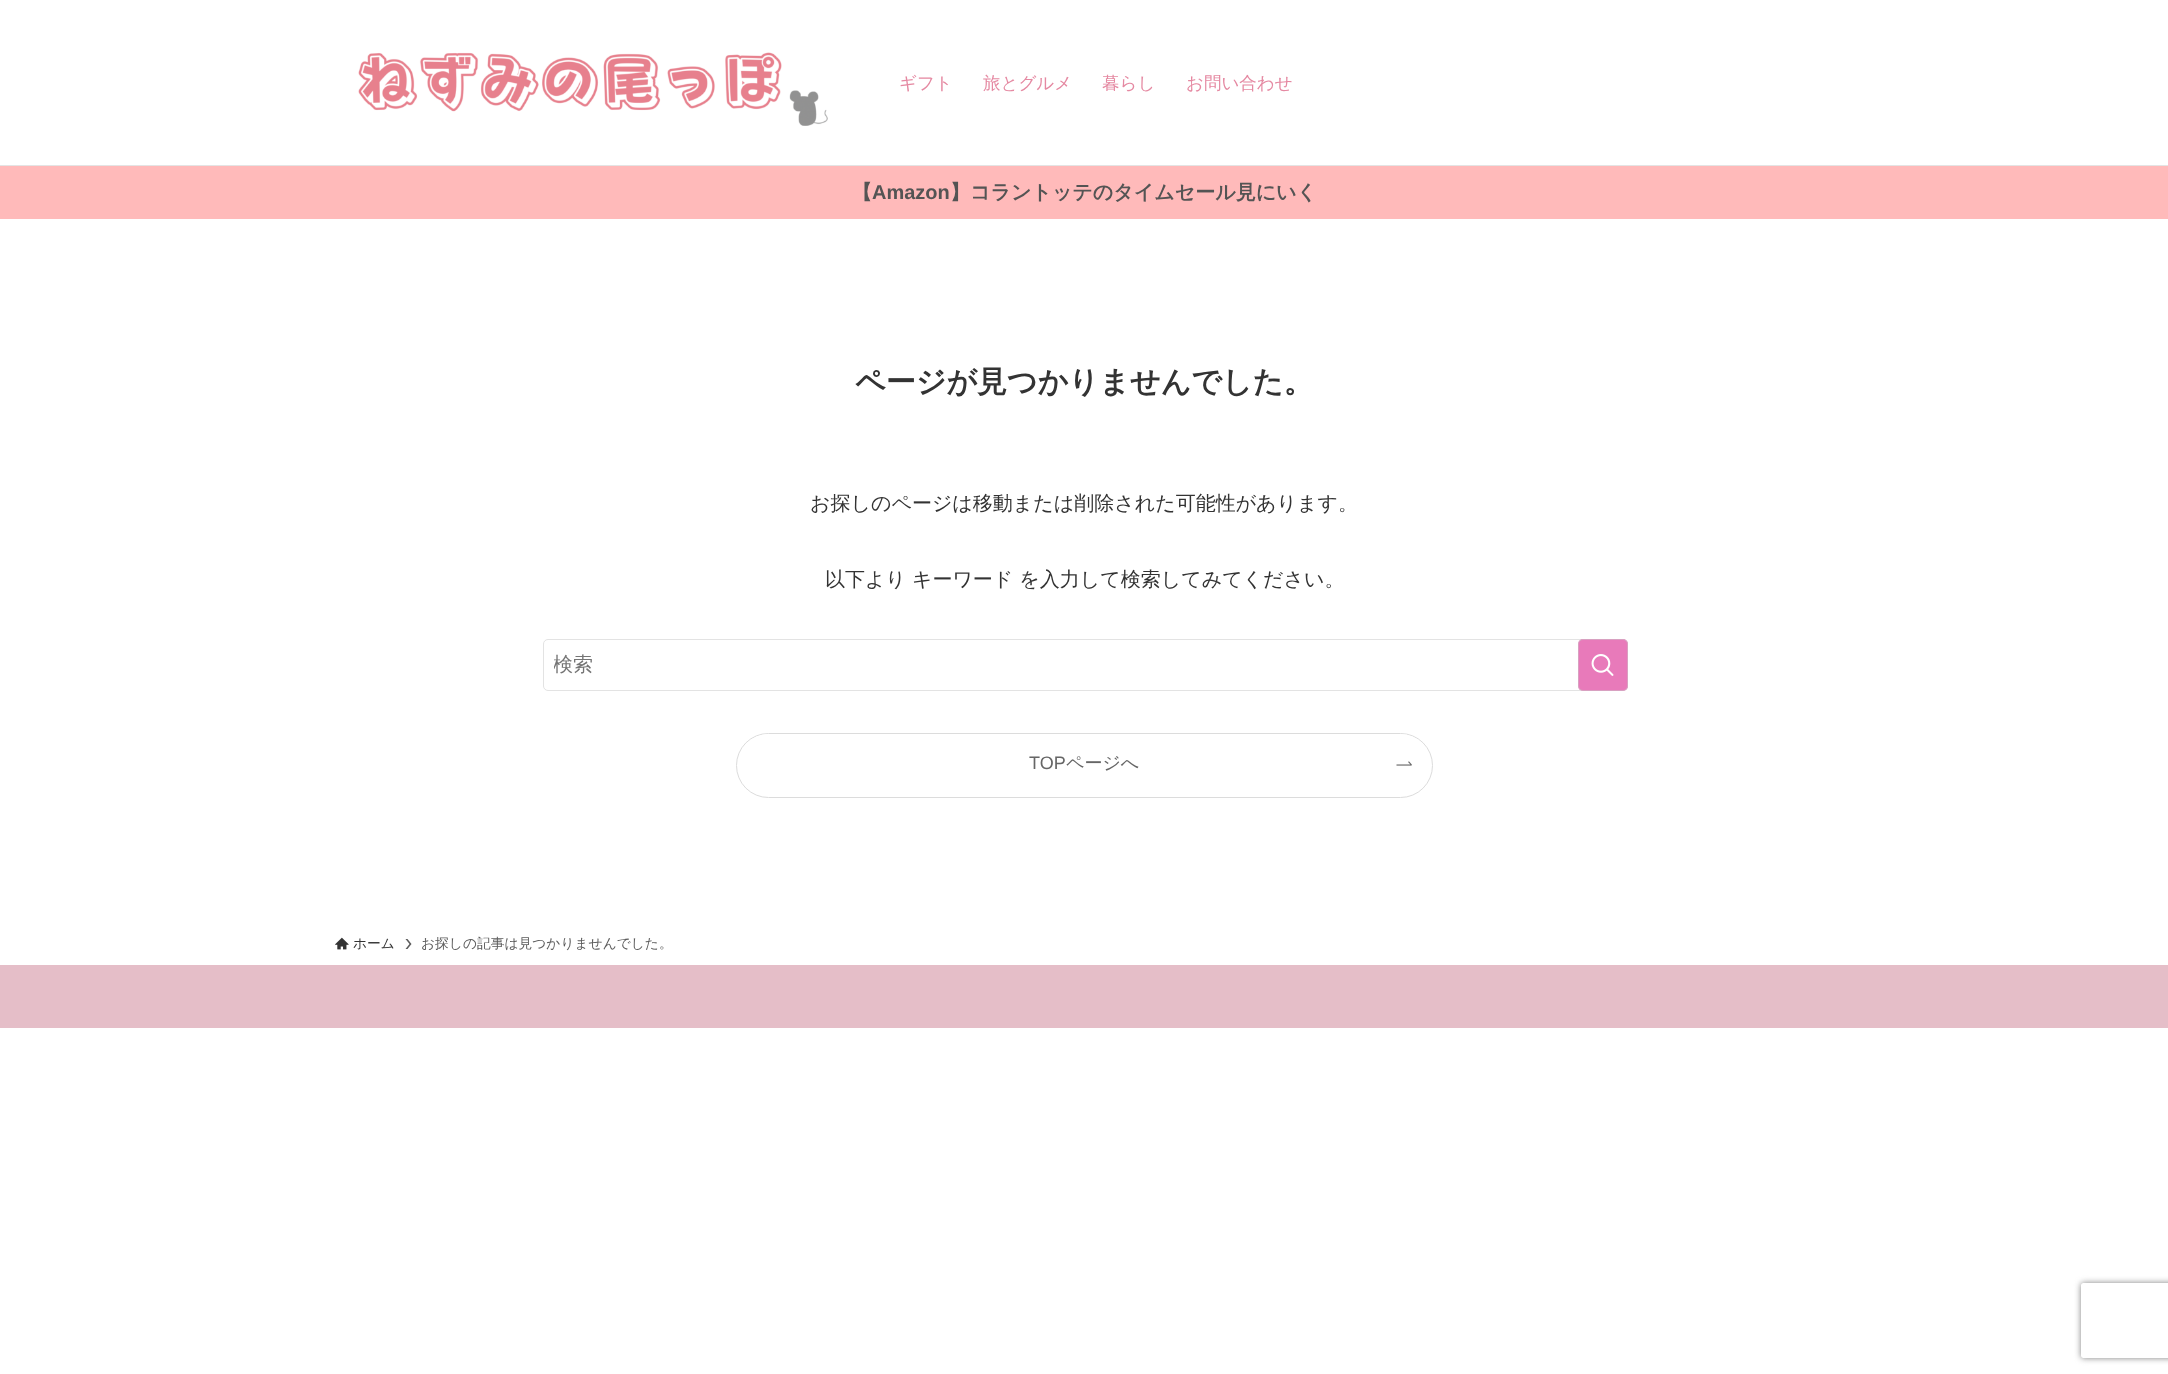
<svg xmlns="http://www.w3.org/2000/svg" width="2168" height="1374">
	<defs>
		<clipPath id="clip1"><rect x="554" y="653" width="1017" height="26" /></clipPath>
		<clipPath id="clip2"><path d="M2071 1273H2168V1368H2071ZM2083.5 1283H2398.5C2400 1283 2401 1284 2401 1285.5V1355.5C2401 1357 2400 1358 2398.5 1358H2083.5C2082 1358 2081 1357 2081 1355.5V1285.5C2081 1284 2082 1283 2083.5 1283Z" clip-rule="evenodd" /></clipPath>
	</defs>
	<rect width="100%" height="100%" fill="#FFFFFF" />
	<rect x="0" y="165" width="2168" height="1" fill="#E4E4E4" />
	<image x="358" y="52" width="470" height="74" href="assets/img1.png" />
	<g font-family="WenQuanYi Zen Hei" font-size="17.5" font-weight="500" fill="#E589A2">
		<text x="899" y="89">ギフト</text>
		<text x="983" y="89">旅とグルメ</text>
		<text x="1102" y="89">暮らし</text>
		<text x="1186" y="89">お問い合わせ</text>
	</g>
	<rect x="0" y="166" width="2168" height="53" fill="#FFBABA" />
	<text x="852" y="199" font-family="WenQuanYi Zen Hei" font-size="20" font-weight="700" fill="#545454">【</text>
	<text x="872" y="199" font-family="Liberation Sans" font-size="20" font-weight="700" fill="#545454">Amazon</text>
	<text x="950" y="199" font-family="WenQuanYi Zen Hei" font-size="20" font-weight="700" fill="#545454">】コラントッテのタイムセール見にいく</text>
	<text x="855" y="392" font-family="WenQuanYi Zen Hei" font-size="30" font-weight="700" fill="#333333">ページが見つかりませんでした。</text>
	<g font-family="WenQuanYi Zen Hei" font-size="20" font-weight="500" fill="#333333">
		<text x="810" y="510">お探しのページは移動または削除された可能性があります。</text>
		<text x="825" y="586">以下より キーワード を入力して検索してみてください。</text>
	</g>
	<rect x="543.5" y="639.5" width="1084" height="51" rx="4.5" fill="none" stroke="#E3E3E3" />
	<g clip-path="url(#clip1)">
		<text x="553" y="671" font-family="WenQuanYi Zen Hei" font-size="20" font-weight="500" fill="#757575">検索</text>
	</g>
	<rect x="1578" y="639" width="50" height="52" rx="5" fill="#E87ABA" />
	<rect x="1578.5" y="639.5" width="49" height="51" rx="4.5" fill="none" stroke="#C7C7C7" stroke-opacity="0.5" />
	<image x="1591" y="654" width="23" height="22" href="assets/img2.png" />
	<rect x="736.5" y="733.5" width="696" height="64" rx="32" fill="none" stroke="#DCDCDC" />
	<rect x="738" y="734" width="693" height="62" rx="31" fill="#FFFFFF" />
	<text x="1029" y="769" font-family="Liberation Sans" font-size="18" fill="#666666">TOP</text>
	<text x="1066" y="769" font-family="WenQuanYi Zen Hei" font-size="18" font-weight="500" fill="#666666">ページへ</text>
	<image x="1396" y="761" width="16" height="5" href="assets/img3.png" />
	<image x="335" y="937" width="14" height="13" href="assets/img4.png" />
	<text x="353" y="948" font-family="WenQuanYi Zen Hei" font-size="13.75" font-weight="500" fill="#333333">ホーム</text>
	<path d="M407.5 939H405.5L409.5 944L405.5 949H407.5L411.5 944Z" fill="#5C5C5C" />
	<text x="421" y="948" font-family="WenQuanYi Zen Hei" font-size="13.75" font-weight="500" fill="#5C5C5C">お探しの記事は見つかりませんでした。</text>
	<rect x="0" y="965" width="2168" height="63" fill="#E5BEC8" />
	<g clip-path="url(#clip2)">
		<rect x="2081" y="1283" width="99" height="75" rx="2.5" fill="#808080" filter="blur(3px)" />
	</g>
</svg>
